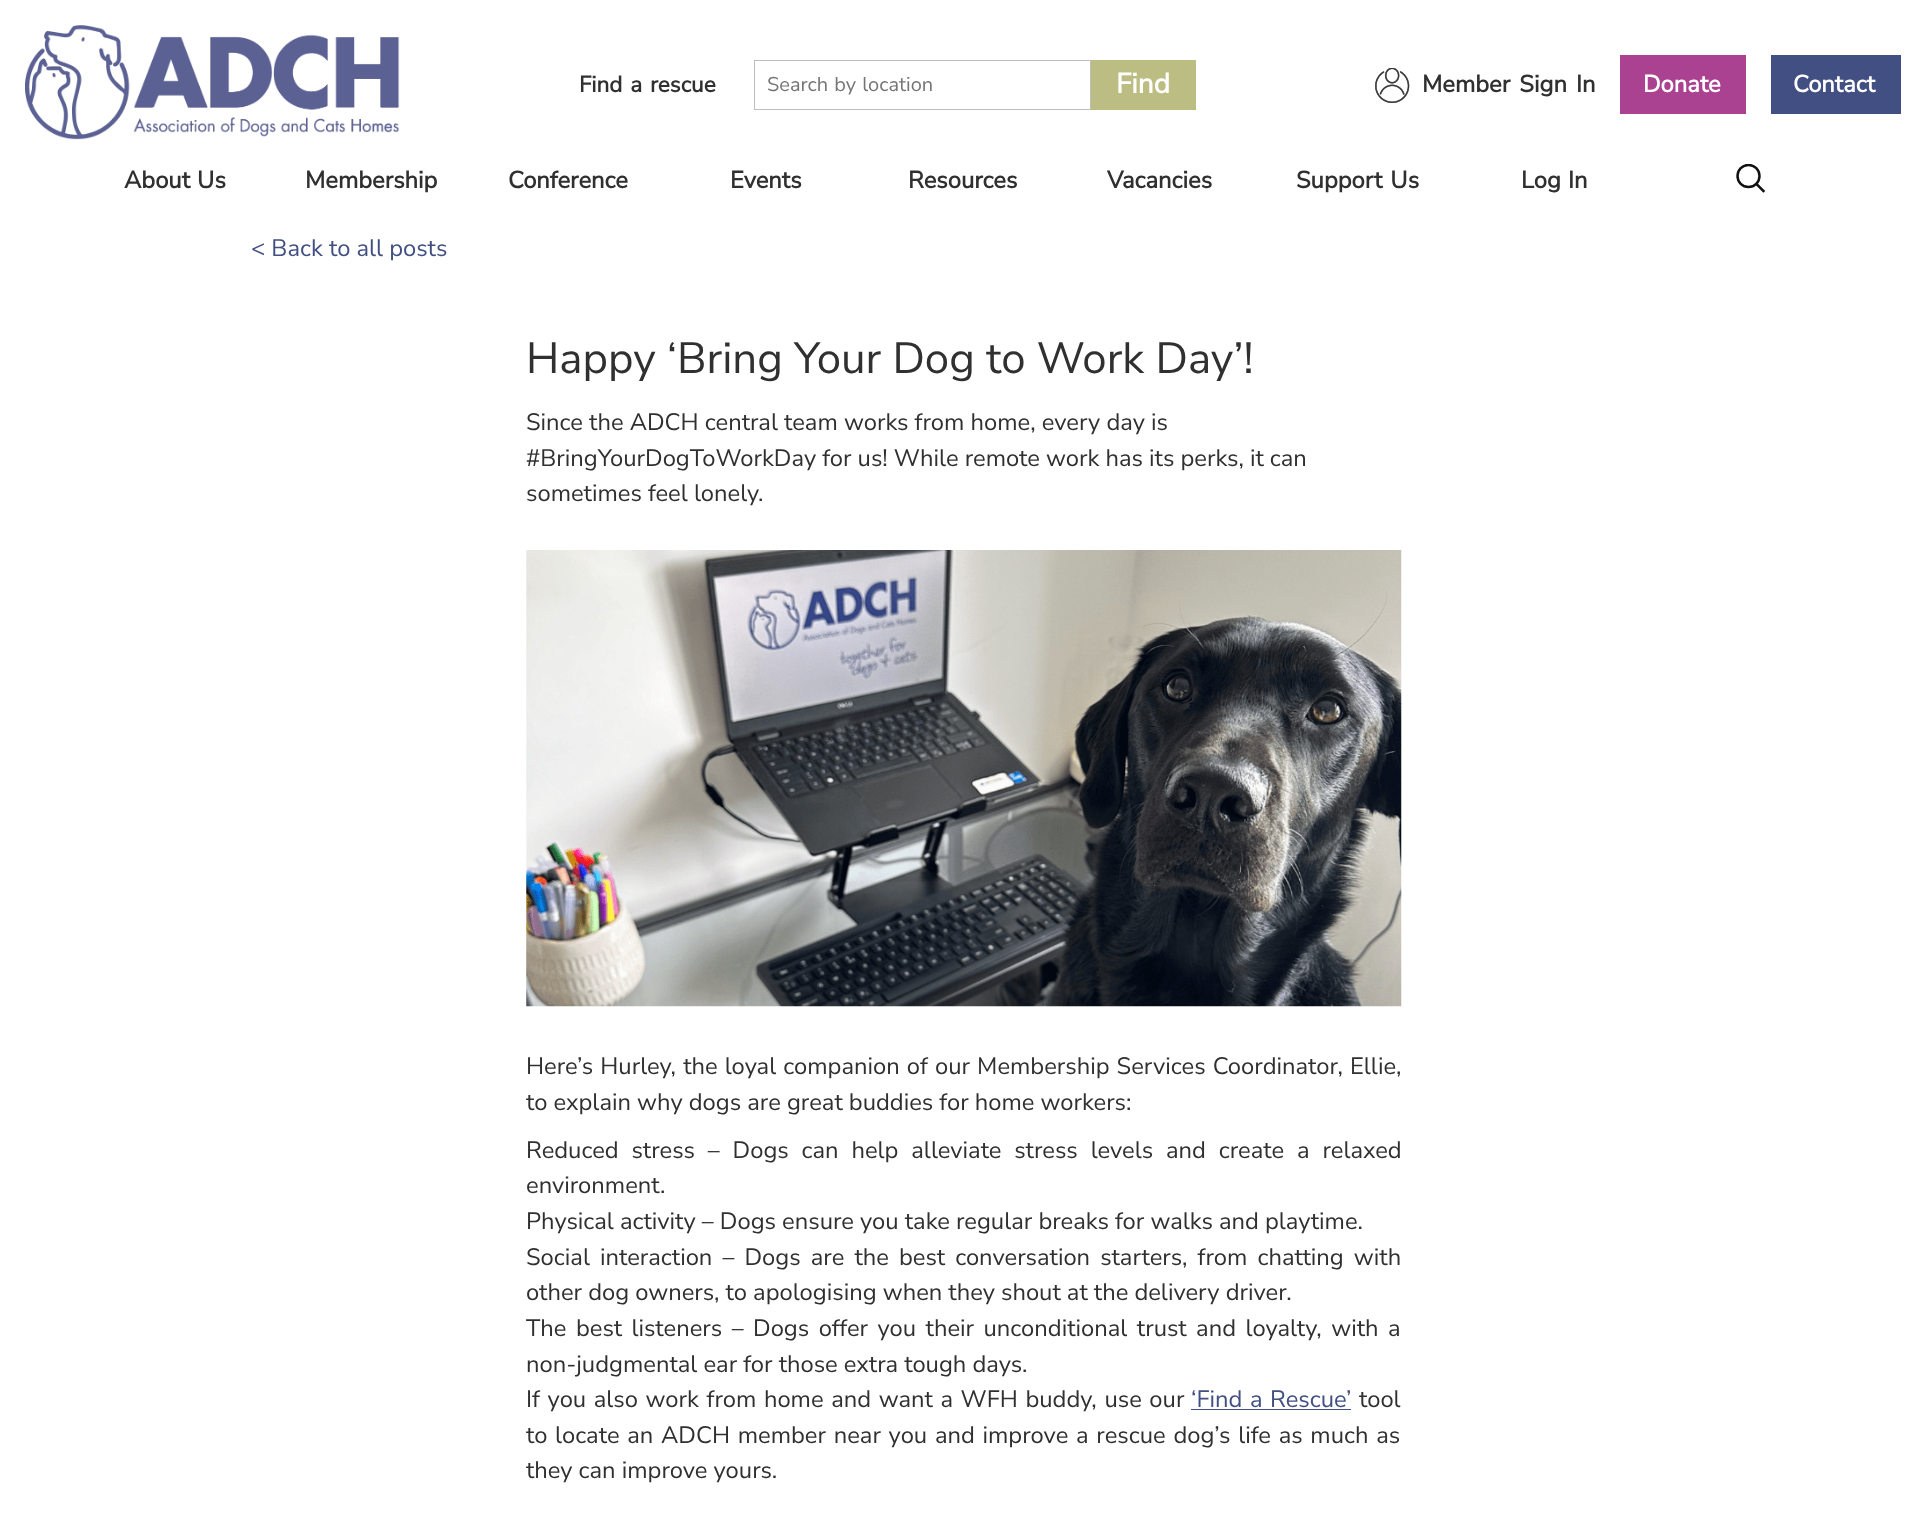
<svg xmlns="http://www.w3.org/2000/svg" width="1926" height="1521">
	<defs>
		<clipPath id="clip1"><rect x="1736" y="164" width="30" height="29" /></clipPath>
	</defs>
	<rect width="100%" height="100%" fill="#FFFFFF" />
	<image x="25" y="25" width="375" height="115" href="assets/img1.png" />
	<text x="579" y="92" word-spacing="2" font-family="Nunito Sans" font-size="22.5" font-weight="700" fill="#303030">Find a rescue</text>
	<rect x="754.5" y="60.5" width="336" height="49" fill="none" stroke="#BEBEBE" />
	<text x="767" y="91" word-spacing="1" font-family="Nunito Sans" font-size="20" fill="#757575">Search by location</text>
	<rect x="1091" y="60" width="105" height="50" fill="#BBBD83" />
	<text x="1116" y="93" font-family="Nunito Sans" font-size="28" font-weight="700" fill="#FFFFFF">Find</text>
	<image x="1375" y="68" width="35" height="35" href="assets/img2.png" />
	<text x="1422" y="92" word-spacing="3" font-family="Nunito Sans" font-size="23.75" font-weight="700" fill="#303030">Member Sign In</text>
	<rect x="1620" y="55" width="126" height="59" fill="#AA4191" />
	<text x="1643" y="92" font-family="Nunito Sans" font-size="23.75" font-weight="700" fill="#FFFFFF">Donate</text>
	<rect x="1771" y="55" width="130" height="59" fill="#414F82" />
	<text x="1793" y="92" font-family="Nunito Sans" font-size="23.75" font-weight="700" fill="#FFFFFF">Contact</text>
	<g font-family="Nunito Sans" font-size="23.75" font-weight="700" fill="#303030">
		<text x="124" y="188" word-spacing="1">About Us</text>
		<text x="305" y="188">Membership</text>
		<text x="508" y="188">Conference</text>
		<text x="730" y="188">Events</text>
		<text x="908" y="188">Resources</text>
		<text x="1107" y="188">Vacancies</text>
		<text x="1296" y="188" word-spacing="2">Support Us</text>
		<text x="1521" y="188" word-spacing="1">Log In</text>
	</g>
	<path d="M1763.5 191L1756.5 184" fill="none" stroke="#111111" stroke-width="2.5" stroke-linecap="square" />
	<g clip-path="url(#clip1)">
		<circle cx="1748.5" cy="176" r="11" fill="none" stroke="#111111" stroke-width="2.5" />
	</g>
	<text x="251" y="256" font-family="Nunito Sans" font-size="23.75" fill="#414F82">&lt; Back to all posts</text>
	<text x="526" y="373" font-family="Nunito Sans" font-size="43.75" fill="#303030">Happy ‘Bring Your Dog to Work Day’!</text>
	<g font-family="Nunito Sans" font-size="23.75" fill="#303030">
		<text x="526" y="430">Since the ADCH central team works from home, every day is</text>
		<text x="526" y="466">#BringYourDogToWorkDay for us! While remote work has its perks, it can</text>
		<text x="526" y="501">sometimes feel lonely.</text>
	</g>
	<image x="526" y="550" width="876" height="457" href="assets/img3.png" />
	<g font-family="Nunito Sans" font-size="23.75" fill="#303030">
		<text x="526" y="1074" word-spacing="1">Here’s Hurley, the loyal companion of our Membership Services Coordinator, Ellie,</text>
		<text x="526" y="1110">to explain why dogs are great buddies for home workers:</text>
		<text x="526" y="1158" word-spacing="6.75">Reduced stress – Dogs can help alleviate stress levels and create a relaxed</text>
		<text x="526" y="1193">environment.</text>
		<text x="526" y="1229">Physical activity – Dogs ensure you take regular breaks for walks and playtime.</text>
		<text x="526" y="1265" word-spacing="4">Social interaction – Dogs are the best conversation starters, from chatting with</text>
		<text x="526" y="1300">other dog owners, to apologising when they shout at the delivery driver.</text>
		<text x="526" y="1336" word-spacing="3.4">The best listeners – Dogs offer you their unconditional trust and loyalty, with a</text>
		<text x="526" y="1372">non-judgmental ear for those extra tough days.</text>
		<text x="526" y="1407" word-spacing="1.5">If you also work from home and want a WFH buddy, use our</text>
	</g>
	<text x="1191" y="1407" word-spacing="1.5" font-family="Nunito Sans" font-size="23.75" fill="#414F82">‘Find a Rescue’</text>
	<rect x="1191" y="1409" width="160" height="1" fill="#414F82" />
	<g font-family="Nunito Sans" font-size="23.75" fill="#303030">
		<text x="1359" y="1407">tool</text>
		<text x="526" y="1443" word-spacing="1.6">to locate an ADCH member near you and improve a rescue dog’s life as much as</text>
		<text x="526" y="1478">they can improve yours.</text>
	</g>
</svg>
